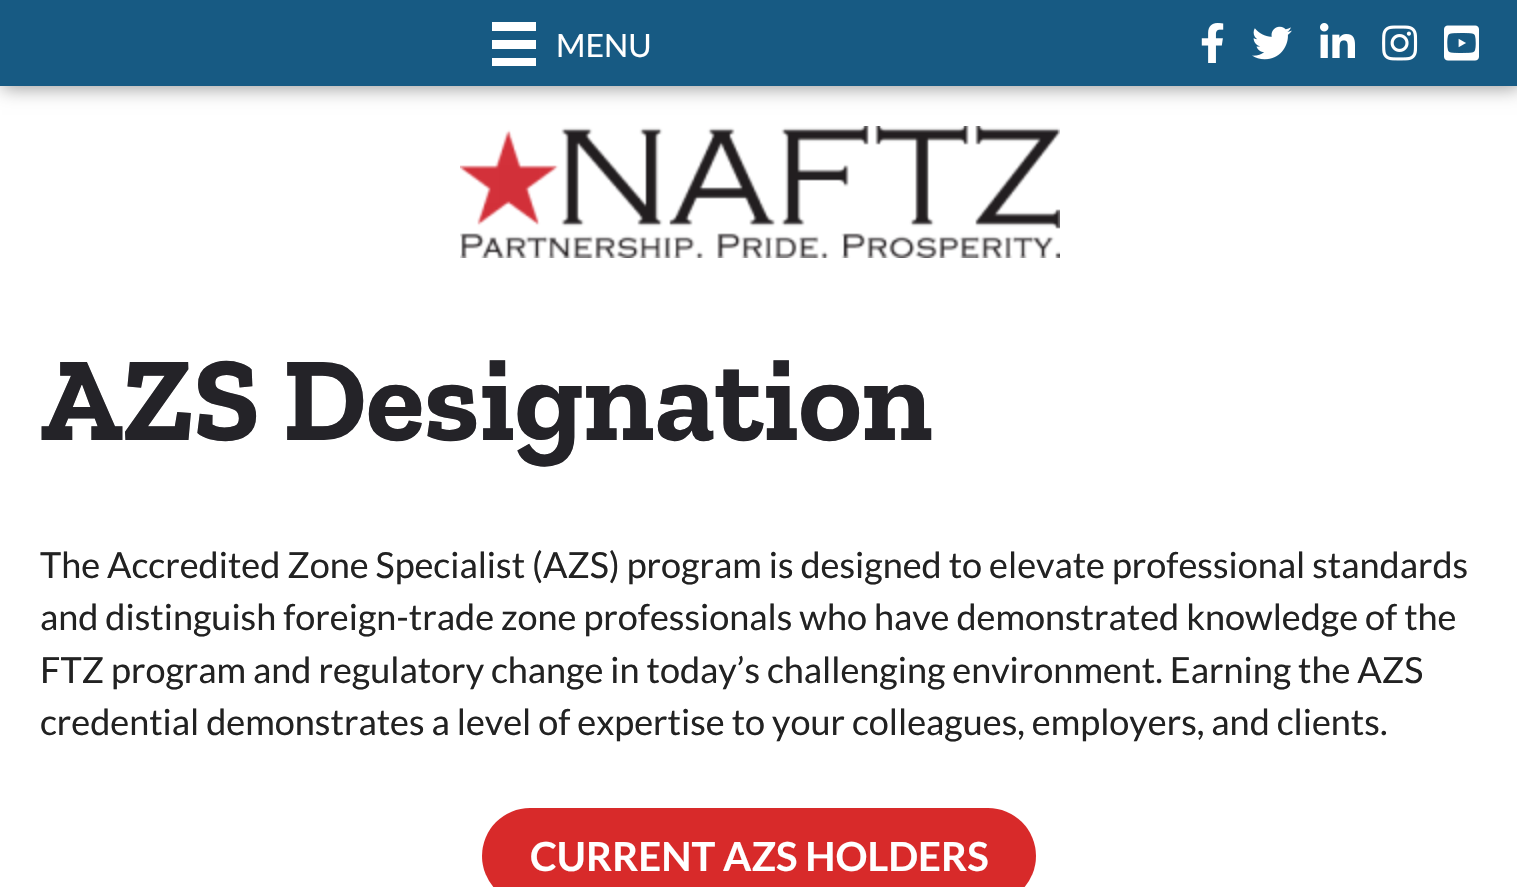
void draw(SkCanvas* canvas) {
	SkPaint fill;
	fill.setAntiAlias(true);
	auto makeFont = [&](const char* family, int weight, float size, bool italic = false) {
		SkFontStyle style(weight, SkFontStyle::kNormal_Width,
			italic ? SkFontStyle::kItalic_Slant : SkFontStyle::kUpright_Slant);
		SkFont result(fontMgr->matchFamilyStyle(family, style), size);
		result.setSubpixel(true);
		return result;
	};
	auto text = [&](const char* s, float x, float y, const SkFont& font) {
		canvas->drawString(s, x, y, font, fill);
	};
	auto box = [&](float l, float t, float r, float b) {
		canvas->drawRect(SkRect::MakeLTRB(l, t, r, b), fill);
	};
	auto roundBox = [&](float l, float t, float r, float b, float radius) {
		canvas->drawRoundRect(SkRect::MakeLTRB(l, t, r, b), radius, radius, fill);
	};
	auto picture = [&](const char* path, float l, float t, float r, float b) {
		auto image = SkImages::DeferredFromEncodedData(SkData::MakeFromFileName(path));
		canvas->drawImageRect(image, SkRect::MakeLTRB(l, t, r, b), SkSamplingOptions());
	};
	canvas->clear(0xFFFFFFFF);
	fill.setColor(0xFF999999);
	fill.setMaskFilter(SkMaskFilter::MakeBlur(kNormal_SkBlurStyle, 9));
	canvas->drawRect(SkRect::MakeLTRB(2, 2, 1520, 88), fill);
	fill.setMaskFilter(nullptr);
	fill.setColor(0xFF175A83);
	box(0, 0, 1517, 86);
	fill.setColor(0xFFFFFFFF);
	box(492, 22, 536, 31);
	box(492, 40, 536, 49);
	box(492, 58, 536, 66);
	picture("image0.png", 1201, 23, 1224, 63);
	picture("image1.png", 1252, 26, 1292, 60);
	picture("image2.png", 1320, 23, 1355, 58);
	picture("image3.png", 1382, 25, 1418, 61);
	picture("image4.png", 1444, 25, 1479, 61);
	picture("image5.png", 460, 126, 1060, 258);
	fill.setColor(0xFFD82A2A);
	roundBox(482, 808, 1036, 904, 48);
	auto font1 = makeFont("Lato", 400, 32);
	fill.setColor(0xFFFFFFFF);
	text("MENU", 556, 57, font1);
	auto font2 = makeFont("Zilla Slab", 700, 120);
	fill.setColor(0xFF242328);
	text("AZS Designation", 40, 440, font2);
	auto font3 = makeFont("Lato", 400, 36);
	fill.setColor(0xFF222222);
	text("The Accredited Zone Specialist (AZS) program is designed to elevate professional standards", 40, 578, font3);
	text("and distinguish foreign-trade zone professionals who have demonstrated knowledge of the", 40, 630, font3);
	text("FTZ program and regulatory change in today’s challenging environment. Earning the AZS", 40, 683, font3);
	text("credential demonstrates a level of expertise to your colleagues, employers, and clients.", 40, 735, font3);
	auto font4 = makeFont("Lato", 700, 40);
	fill.setColor(0xFFFFFFFF);
	text("CURRENT AZS HOLDERS", 530, 871, font4);
}
